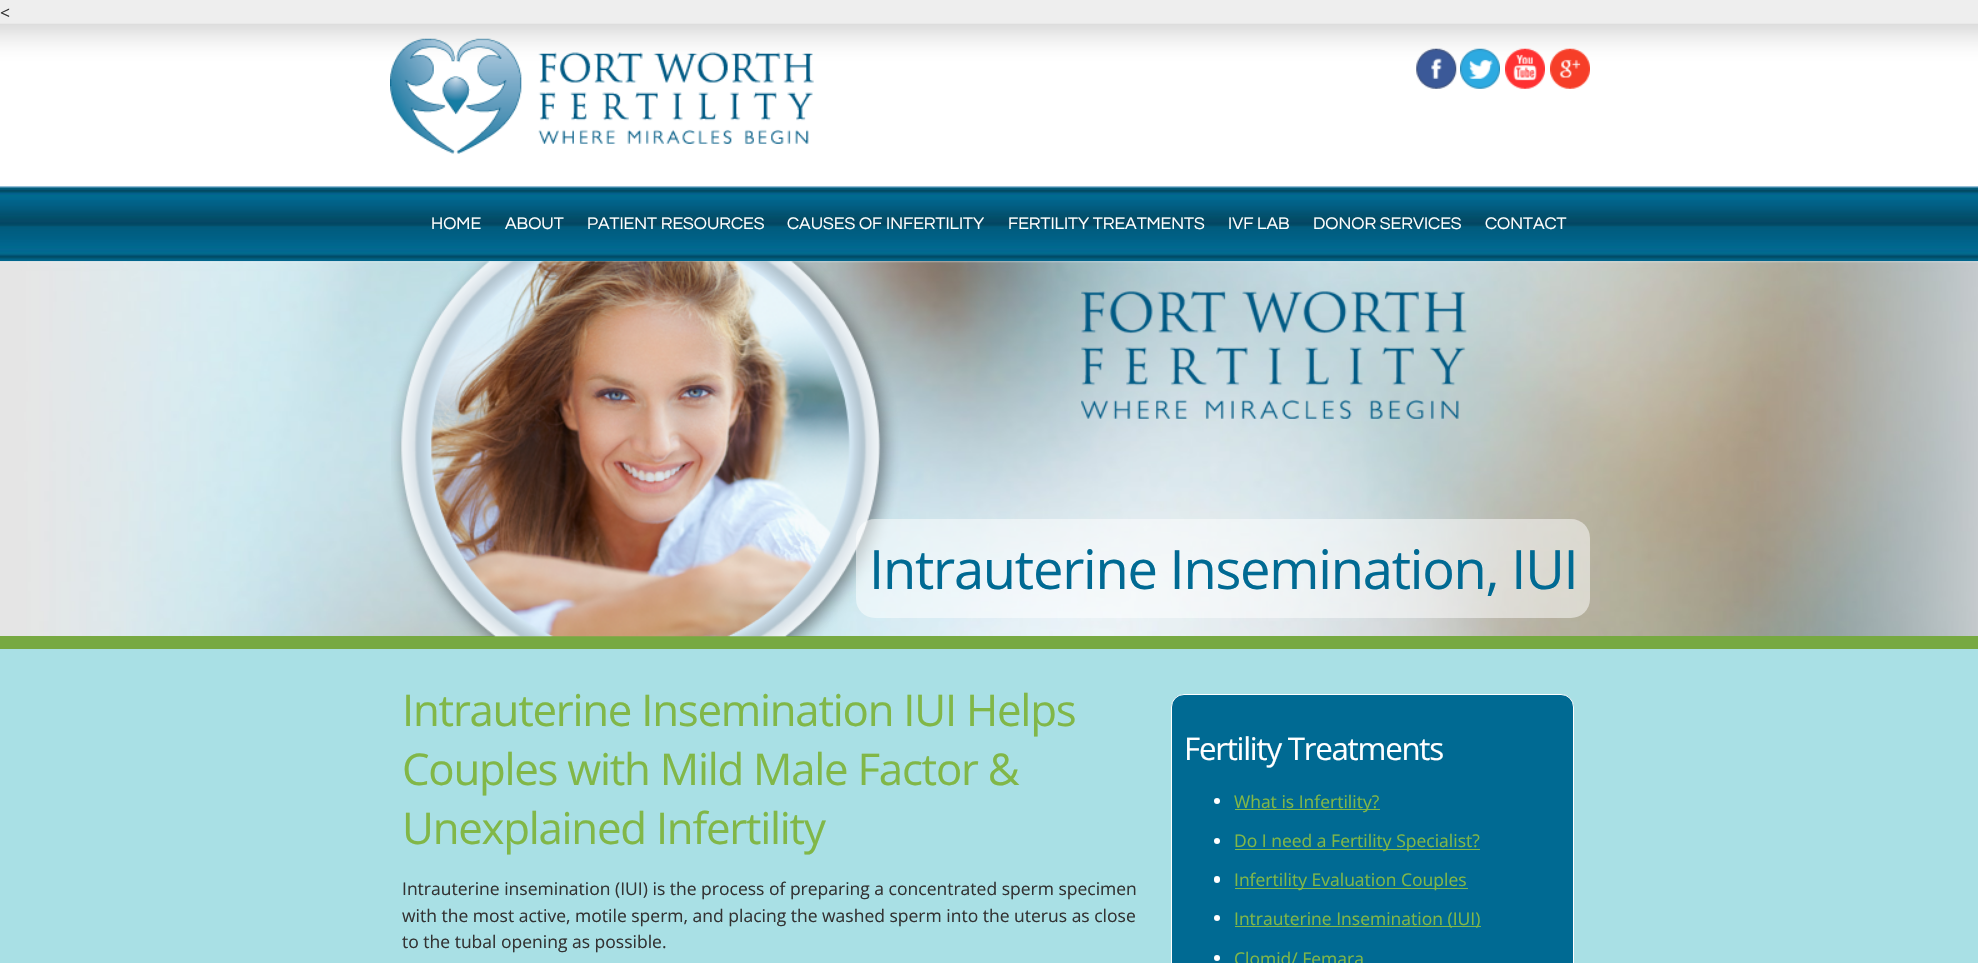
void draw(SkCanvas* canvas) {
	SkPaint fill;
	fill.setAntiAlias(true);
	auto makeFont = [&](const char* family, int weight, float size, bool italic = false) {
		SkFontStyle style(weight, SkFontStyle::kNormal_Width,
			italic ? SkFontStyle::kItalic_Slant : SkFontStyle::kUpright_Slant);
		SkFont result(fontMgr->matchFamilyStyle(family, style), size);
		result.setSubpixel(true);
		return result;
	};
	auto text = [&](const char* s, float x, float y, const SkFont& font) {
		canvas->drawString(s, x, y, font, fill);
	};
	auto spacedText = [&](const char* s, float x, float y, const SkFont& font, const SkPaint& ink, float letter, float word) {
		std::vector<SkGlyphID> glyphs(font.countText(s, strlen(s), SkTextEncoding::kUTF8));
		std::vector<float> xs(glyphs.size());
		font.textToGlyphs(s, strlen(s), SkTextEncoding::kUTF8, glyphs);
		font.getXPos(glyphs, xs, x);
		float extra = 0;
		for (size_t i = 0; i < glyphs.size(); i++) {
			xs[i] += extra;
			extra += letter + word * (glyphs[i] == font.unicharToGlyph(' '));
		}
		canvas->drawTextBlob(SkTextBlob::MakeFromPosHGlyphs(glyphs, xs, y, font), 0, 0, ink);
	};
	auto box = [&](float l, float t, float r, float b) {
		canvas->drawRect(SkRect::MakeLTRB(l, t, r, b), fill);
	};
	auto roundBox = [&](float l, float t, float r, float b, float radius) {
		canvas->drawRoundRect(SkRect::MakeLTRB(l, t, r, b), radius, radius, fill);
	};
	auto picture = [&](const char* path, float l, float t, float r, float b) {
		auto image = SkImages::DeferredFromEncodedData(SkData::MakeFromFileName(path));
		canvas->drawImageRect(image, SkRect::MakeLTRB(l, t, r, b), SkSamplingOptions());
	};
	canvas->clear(0xFFEEEEEE);
	picture("image0.png", 0, 23, 1978, 187);
	picture("image1.png", 390, 38, 814, 154);
	picture("image2.png", 1416, 48, 1457, 89);
	picture("image3.png", 1460, 48, 1500, 89);
	picture("image4.png", 1505, 48, 1545, 89);
	picture("image5.png", 1550, 48, 1590, 89);
	picture("image6.png", 0, 186, 1978, 262);
	picture("image7.png", 0, 261, 1978, 636);
	fill.setColor(0xFF77A942);
	box(0, 636, 1978, 649);
	picture("image8.png", 391, 261, 1467, 637);
	fill.setColor(0x80FFFFFF);
	roundBox(856, 519, 1590, 618, 19);
	fill.setColor(0xFFA9E0E5);
	box(0, 649, 1978, 963);
	fill.setColor(0xFF006A93);
	canvas->drawRoundRect(SkRect::MakeLTRB(1171.5f, 694.5f, 1573.5f, 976.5f), 12.5f, 12.5f, fill);
	fill.setStyle(SkPaint::kStroke_Style);
	fill.setStrokeWidth(1);
	fill.setColor(0xFFFFFFFF);
	canvas->drawRoundRect(SkRect::MakeLTRB(1171.5f, 694.5f, 1573.5f, 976.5f), 12.5f, 12.5f, fill);
	fill.setStyle(SkPaint::kFill_Style);
	canvas->drawCircle(1217, 801, 3, fill);
	fill.setColor(0xFF81B748);
	box(1235, 809, 1380, 810);
	fill.setColor(0xFFFFFFFF);
	canvas->drawCircle(1217, 841, 3, fill);
	fill.setColor(0xFF81B748);
	box(1235, 849, 1480, 850);
	fill.setColor(0xFFFFFFFF);
	roundBox(1214, 876, 1220, 883, 3);
	fill.setColor(0xFF81B748);
	box(1235, 888, 1468, 889);
	fill.setColor(0xFFFFFFFF);
	canvas->drawCircle(1217, 918, 3, fill);
	fill.setColor(0xFF81B748);
	box(1235, 926, 1481, 927);
	fill.setColor(0xFFFFFFFF);
	canvas->drawCircle(1217, 958, 3, fill);
	auto font1 = makeFont("Open Sans", 400, 17.5f);
	fill.setColor(0xFF333333);
	text("<", 0, 19, font1);
	auto font2 = makeFont("Questrial", 400, 17.5f);
	fill.setColor(0xFFFFFFFF);
	text("HOME", 431, 229, font2);
	text("ABOUT", 505, 229, font2);
	text("PATIENT RESOURCES", 587, 229, font2);
	text("CAUSES OF INFERTILITY", 787, 229, font2);
	text("FERTILITY TREATMENTS", 1008, 229, font2);
	text("IVF LAB", 1228, 229, font2);
	text("DONOR SERVICES", 1313, 229, font2);
	text("CONTACT", 1485, 229, font2);
	auto font3 = makeFont("Open Sans", 400, 54.25f);
	fill.setColor(0xFF006A93);
	spacedText("Intrauterine Insemination, IUI", 869, 589, font3, fill, -1.25f, 0);
	auto font4 = makeFont("Open Sans", 400, 43.75f);
	fill.setColor(0xFF81B748);
	spacedText("Intrauterine Insemination IUI Helps", 402, 726, font4, fill, -1.25f, 0);
	spacedText("Couples with Mild Male Factor &", 402, 785, font4, fill, -1.25f, 0);
	spacedText("Unexplained Infertility", 402, 844, font4, fill, -1.25f, 0);
	fill.setColor(0xFF333333);
	text("Intrauterine insemination (IUI) is the process of preparing a concentrated sperm specimen", 402, 895, font1);
	text("with the most active, motile sperm, and placing the washed sperm into the uterus as close", 402, 922, font1);
	text("to the tubal opening as possible.", 402, 948, font1);
	auto font5 = makeFont("Open Sans", 400, 31.25f);
	fill.setColor(0xFFFFFFFF);
	spacedText("Fertility Treatments", 1184, 760, font5, fill, -1.25f, 0);
	fill.setColor(0xFF81B748);
	text("What is Infertility?", 1234, 808, font1);
	text("Do I need a Fertility Specialist?", 1234, 847, font1);
	text("Infertility Evaluation Couples", 1234, 886, font1);
	text("Intrauterine Insemination (IUI)", 1234, 925, font1);
	text("Clomid/ Femara", 1234, 965, font1);
}
